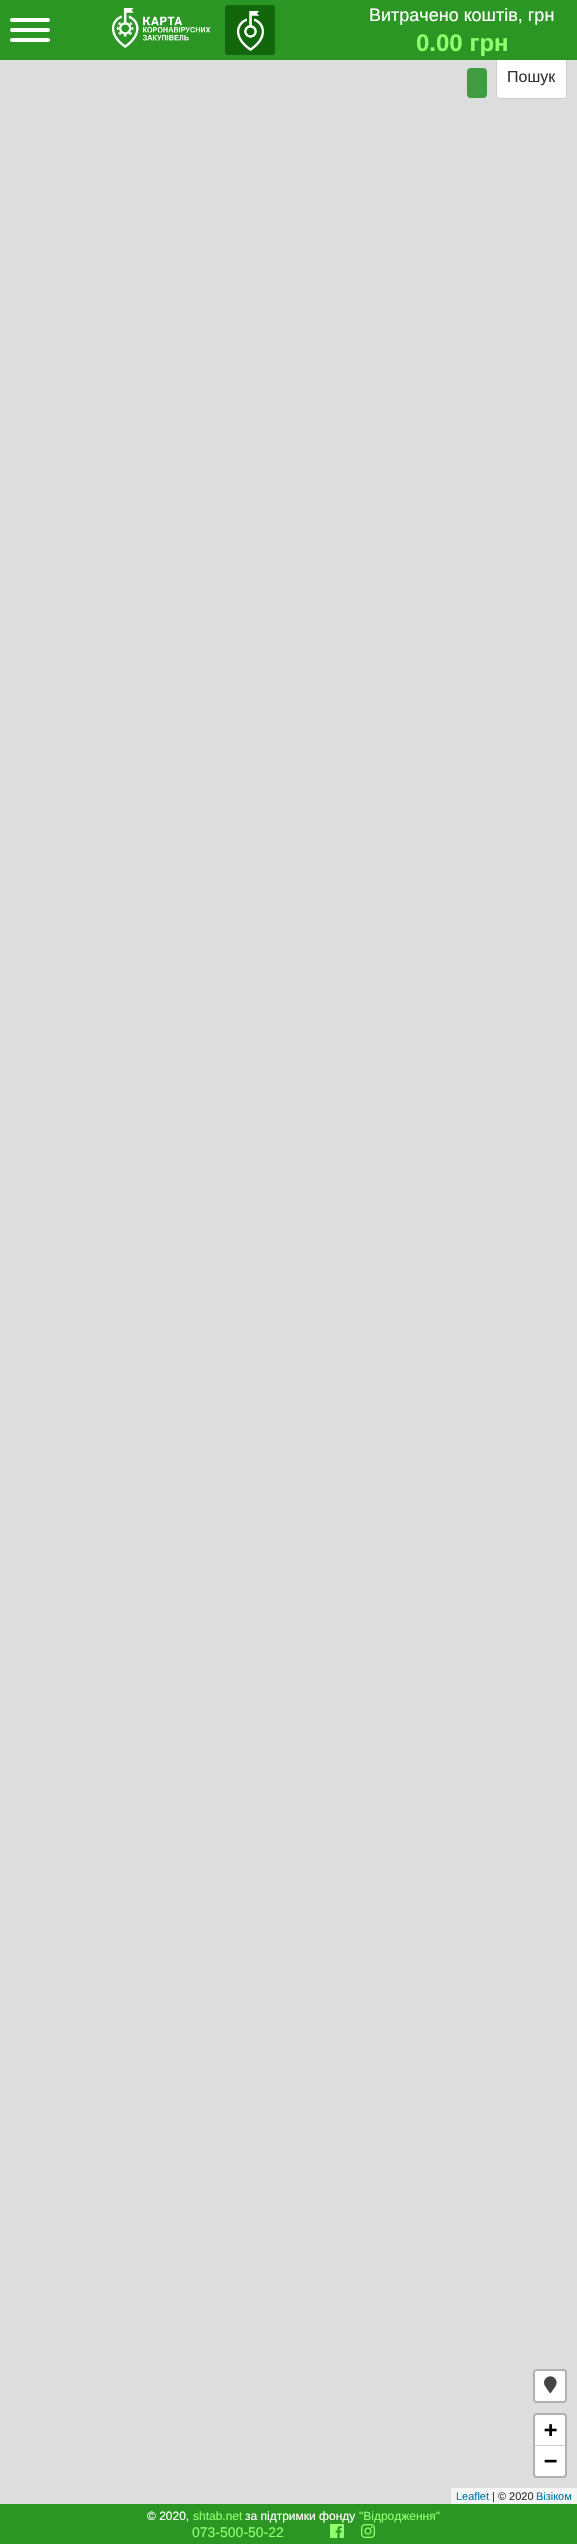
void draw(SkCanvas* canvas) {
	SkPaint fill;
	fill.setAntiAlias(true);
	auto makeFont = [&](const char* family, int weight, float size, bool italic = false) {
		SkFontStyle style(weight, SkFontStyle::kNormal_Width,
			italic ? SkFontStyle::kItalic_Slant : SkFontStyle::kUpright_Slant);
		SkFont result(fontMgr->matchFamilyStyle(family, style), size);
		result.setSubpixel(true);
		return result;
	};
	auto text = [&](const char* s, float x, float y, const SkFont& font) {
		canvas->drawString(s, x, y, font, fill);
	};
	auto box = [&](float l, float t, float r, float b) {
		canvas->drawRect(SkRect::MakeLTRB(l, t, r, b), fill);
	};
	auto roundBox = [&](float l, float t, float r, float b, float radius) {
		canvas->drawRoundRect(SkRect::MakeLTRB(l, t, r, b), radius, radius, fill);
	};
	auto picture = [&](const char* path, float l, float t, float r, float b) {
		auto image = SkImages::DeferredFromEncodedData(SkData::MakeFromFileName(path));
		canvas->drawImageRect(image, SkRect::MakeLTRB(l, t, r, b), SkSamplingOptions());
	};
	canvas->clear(0xFF2B9624);
	fill.setColor(0xFFDDDDDD);
	box(0, 60, 577, 2504);
	fill.setColor(0xFFFFFFFF);
	canvas->drawPath(SkPathBuilder().moveTo(496, 57).lineTo(567, 57).lineTo(567, 95).cubicTo(567, 97, 565, 99, 563, 99).lineTo(500, 99).cubicTo(498, 99, 496, 97, 496, 95).close().detach(), fill);
	fill.setColor(0xFFCCCCCC);
	canvas->drawPath(SkPathBuilder(SkPathFillType::kEvenOdd).moveTo(496, 57).lineTo(567, 57).lineTo(567, 95).cubicTo(567, 97, 565, 99, 563, 99).lineTo(500, 99).cubicTo(498, 99, 496, 97, 496, 95).close().moveTo(497, 57).lineTo(566, 57).lineTo(566, 95).cubicTo(566, 97, 565, 98, 563, 98).lineTo(500, 98).cubicTo(498, 98, 497, 97, 497, 95).close().detach(), fill);
	fill.setColor(0xFF2B9624);
	box(496, 57, 567, 60);
	fill.setColor(0xFFFFFFFF);
	roundBox(10, 28, 50, 32, 2);
	roundBox(10, 18, 50, 22, 2);
	roundBox(10, 38, 50, 42, 2);
	picture("image0.png", 112, 8, 211, 48);
	fill.setColor(0xFF12670D);
	roundBox(225, 5, 275, 55, 3);
	picture("image1.png", 237, 11, 264, 51);
	fill.setColor(0xFF3D9D40);
	roundBox(467, 68, 487, 98, 4);
	fill.setStyle(SkPaint::kStroke_Style);
	fill.setStrokeWidth(2);
	fill.setColor(0xFFB1B1B1);
	canvas->drawRoundRect(SkRect::MakeLTRB(534, 2370, 566, 2402), 3, 3, fill);
	fill.setStyle(SkPaint::kFill_Style);
	fill.setColor(0xFFFFFFFF);
	roundBox(535, 2371, 565, 2401, 2);
	picture("image2.png", 544, 2376, 557, 2394);
	fill.setStyle(SkPaint::kStroke_Style);
	fill.setColor(0xFFB1B1B1);
	canvas->drawRoundRect(SkRect::MakeLTRB(534, 2414, 566, 2477), 3, 3, fill);
	fill.setStyle(SkPaint::kFill_Style);
	fill.setColor(0xFFFFFFFF);
	canvas->drawPath(SkPathBuilder().moveTo(537, 2415).lineTo(563, 2415).cubicTo(564, 2415, 565, 2416, 565, 2417).lineTo(565, 2446).lineTo(535, 2446).lineTo(535, 2417).cubicTo(535, 2416, 536, 2415, 537, 2415).close().detach(), fill);
	fill.setColor(0xFFCCCCCC);
	box(535, 2445, 565, 2446);
	fill.setColor(0xFFFFFFFF);
	canvas->drawPath(SkPathBuilder().moveTo(535, 2446).lineTo(565, 2446).lineTo(565, 2474).cubicTo(565, 2475, 564, 2476, 563, 2476).lineTo(537, 2476).cubicTo(536, 2476, 535, 2475, 535, 2474).close().detach(), fill);
	fill.setColor(0xFFF5F5F5);
	box(451, 2488, 577, 2504);
	picture("image3.png", 330, 2524, 344, 2538);
	picture("image4.png", 361, 2524, 375, 2538);
	auto font1 = makeFont("Liberation Sans", 400, 18);
	fill.setColor(0xFFFFFFFF);
	text("Витрачено коштів, грн", 369, 21, font1);
	auto font2 = makeFont("Liberation Sans", 700, 24);
	fill.setColor(0xFF91FF6E);
	text("0.00 грн", 416, 51, font2);
	auto font3 = makeFont("Liberation Sans", 400, 16);
	fill.setColor(0xFF333333);
	text("Пошук", 507, 82, font3);
	auto font4 = makeFont("DejaVu Sans Mono", 700, 22);
	fill.setColor(0xFF000000);
	text("+", 544, 2437, font4);
	text("−", 544, 2468, font4);
	auto font5 = makeFont("Liberation Sans", 400, 11);
	fill.setColor(0xFF0078A8);
	text("Leaflet", 456, 2500, font5);
	fill.setColor(0xFF333333);
	text("| © 2020", 492, 2500, font5);
	fill.setColor(0xFF0078A8);
	text("Візіком", 536, 2500, font5);
	auto font6 = makeFont("Liberation Sans", 400, 12);
	fill.setColor(0xFFFFFFFF);
	text("© 2020,", 147, 2520, font6);
	fill.setColor(0xFF91FF6E);
	text("shtab.net", 193, 2520, font6);
	fill.setColor(0xFFFFFFFF);
	text("за підтримки фонду", 245, 2520, font6);
	fill.setColor(0xFF91FF6E);
	text("\"Відродження\"", 359, 2520, font6);
	auto font7 = makeFont("Liberation Sans", 400, 14);
	text("073-500-50-22", 192, 2537, font7);
}
